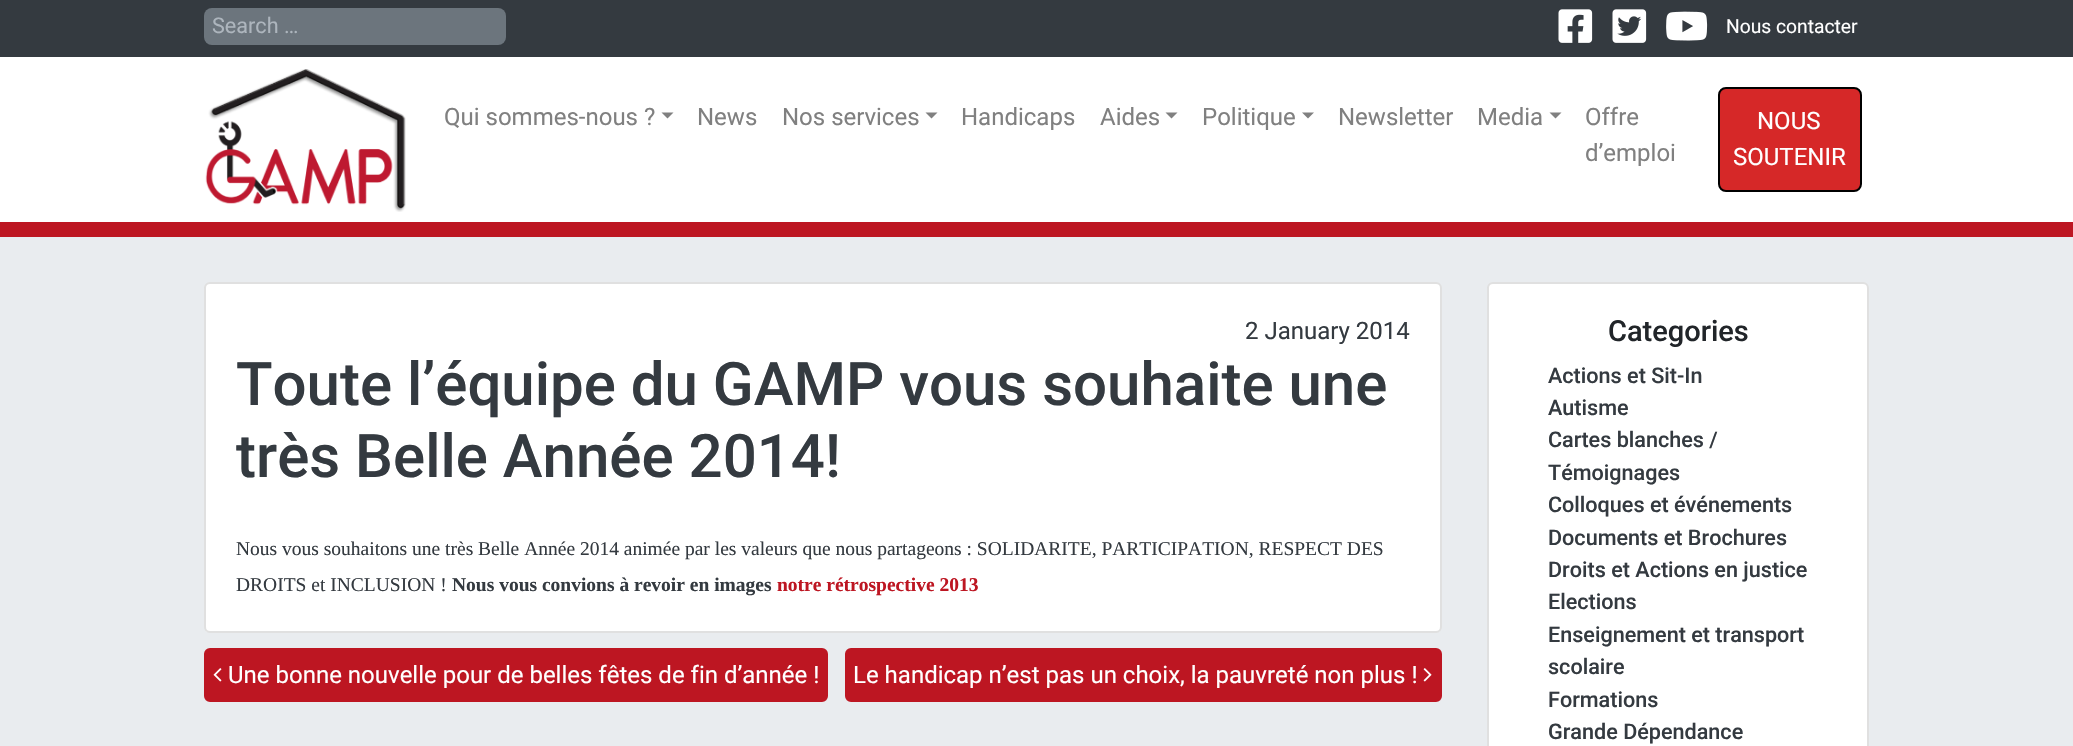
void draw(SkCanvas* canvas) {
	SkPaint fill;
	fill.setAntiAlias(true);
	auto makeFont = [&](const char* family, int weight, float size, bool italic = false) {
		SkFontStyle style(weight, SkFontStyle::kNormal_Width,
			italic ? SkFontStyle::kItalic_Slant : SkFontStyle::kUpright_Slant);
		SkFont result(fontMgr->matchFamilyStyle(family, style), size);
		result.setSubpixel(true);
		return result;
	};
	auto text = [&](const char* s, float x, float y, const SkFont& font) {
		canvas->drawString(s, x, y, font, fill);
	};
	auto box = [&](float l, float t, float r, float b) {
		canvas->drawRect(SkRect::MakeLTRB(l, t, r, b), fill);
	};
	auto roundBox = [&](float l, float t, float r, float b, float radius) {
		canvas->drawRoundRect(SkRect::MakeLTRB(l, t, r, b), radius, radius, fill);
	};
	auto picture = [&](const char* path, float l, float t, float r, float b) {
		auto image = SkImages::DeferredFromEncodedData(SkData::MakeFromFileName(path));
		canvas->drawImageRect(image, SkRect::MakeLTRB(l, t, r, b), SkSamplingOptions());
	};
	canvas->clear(0xFFE9ECEF);
	fill.setColor(0xFF343A40);
	box(0, 0, 2073, 57);
	fill.setColor(0xFF6C757D);
	roundBox(204, 8, 506, 45, 8);
	picture("image0.png", 1558, 9, 1593, 43);
	picture("image1.png", 1612, 9, 1647, 43);
	picture("image2.png", 1666, 11, 1708, 41);
	fill.setColor(0xFFFFFFFF);
	box(0, 57, 2073, 222);
	fill.setColor(0xFFBD1622);
	box(0, 222, 2073, 237);
	picture("image3.png", 205, 69, 406, 212);
	fill.setColor(0xFF808080);
	canvas->drawPath(SkPathBuilder().moveTo(661.5f, 112.5f).lineTo(673.5f, 112.5f).lineTo(667.5f, 118.5f).close().detach(), fill);
	canvas->drawPath(SkPathBuilder().moveTo(925.5f, 112.5f).lineTo(937.5f, 112.5f).lineTo(931.5f, 118.5f).close().detach(), fill);
	canvas->drawPath(SkPathBuilder().moveTo(1165.5f, 112.5f).lineTo(1177.5f, 112.5f).lineTo(1171.5f, 118.5f).close().detach(), fill);
	canvas->drawPath(SkPathBuilder().moveTo(1302, 112.5f).lineTo(1314, 112.5f).lineTo(1308, 118.5f).close().detach(), fill);
	canvas->drawPath(SkPathBuilder().moveTo(1549.5f, 112.5f).lineTo(1561.5f, 112.5f).lineTo(1555.5f, 118.5f).close().detach(), fill);
	fill.setColor(0xFFD62828);
	canvas->drawRoundRect(SkRect::MakeLTRB(1719, 88, 1861, 191), 7, 7, fill);
	fill.setStyle(SkPaint::kStroke_Style);
	fill.setStrokeWidth(2);
	fill.setColor(0xFF000000);
	canvas->drawRoundRect(SkRect::MakeLTRB(1719, 88, 1861, 191), 7, 7, fill);
	fill.setStyle(SkPaint::kFill_Style);
	fill.setColor(0xFFFFFFFF);
	roundBox(204, 282, 1442, 633, 6);
	fill.setStyle(SkPaint::kStroke_Style);
	fill.setColor(0x1F000000);
	canvas->drawRoundRect(SkRect::MakeLTRB(205, 283, 1441, 632), 5, 5, fill);
	fill.setStyle(SkPaint::kFill_Style);
	fill.setColor(0xFFBD1622);
	canvas->drawRoundRect(SkRect::MakeLTRB(205, 649, 827, 701), 5, 5, fill);
	fill.setStyle(SkPaint::kStroke_Style);
	canvas->drawRoundRect(SkRect::MakeLTRB(205, 649, 827, 701), 5, 5, fill);
	picture("image4.png", 213, 668, 222, 682);
	fill.setStyle(SkPaint::kFill_Style);
	canvas->drawRoundRect(SkRect::MakeLTRB(846, 649, 1441, 701), 5, 5, fill);
	fill.setStyle(SkPaint::kStroke_Style);
	canvas->drawRoundRect(SkRect::MakeLTRB(846, 649, 1441, 701), 5, 5, fill);
	picture("image5.png", 1423, 668, 1432, 682);
	fill.setStyle(SkPaint::kFill_Style);
	fill.setColor(0xFFFFFFFF);
	roundBox(1487, 282, 1869, 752, 6);
	fill.setStyle(SkPaint::kStroke_Style);
	fill.setColor(0x1F000000);
	canvas->drawRoundRect(SkRect::MakeLTRB(1488, 283, 1868, 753), 5, 5, fill);
	auto font1 = makeFont("Roboto", 400, 21.6f);
	fill.setStyle(SkPaint::kFill_Style);
	fill.setColor(0xFFADB5BD);
	text("Search …", 212, 33, font1);
	auto font2 = makeFont("Roboto", 400, 19.25f);
	fill.setColor(0xFFFFFFFF);
	text("Nous contacter", 1726, 33, font2);
	auto font3 = makeFont("Roboto", 400, 24);
	fill.setColor(0xFF808080);
	text("Qui sommes-nous ?", 444, 125, font3);
	text("News", 697, 125, font3);
	text("Nos services", 782, 125, font3);
	text("Handicaps", 961, 125, font3);
	text("Aides", 1100, 125, font3);
	text("Politique", 1202, 125, font3);
	text("Newsletter", 1338, 125, font3);
	text("Media", 1477, 125, font3);
	text("Offre", 1585, 125, font3);
	text("d’emploi", 1585, 161, font3);
	fill.setColor(0xFFFFFFFF);
	text("NOUS", 1757, 129, font3);
	text("SOUTENIR", 1733, 165, font3);
	fill.setColor(0xFF343A40);
	text("2 January 2014", 1245, 339, font3);
	auto font4 = makeFont("Roboto", 500, 60);
	text("Toute l’équipe du GAMP vous souhaite une", 236, 405, font4);
	text("très Belle Année 2014!", 236, 477, font4);
	auto font5 = makeFont("Liberation Serif", 400, 19.5f);
	text("Nous vous souhaitons une très Belle Année 2014 animée par les valeurs que nous partageons : SOLIDARITE, PARTICIPATION, RESPECT DES", 236, 555, font5);
	text("DROITS et INCLUSION !", 236, 591, font5);
	auto font6 = makeFont("Liberation Serif", 700, 19.5f);
	text("Nous vous convions à revoir en images", 452, 591, font6);
	fill.setColor(0xFFBD1622);
	text("notre rétrospective 2013", 777, 591, font6);
	fill.setColor(0xFFFFFFFF);
	text("Une bonne nouvelle pour de belles fêtes de fin d’année !", 228, 683, font3);
	text("Le handicap n’est pas un choix, la pauvreté non plus !", 853, 683, font3);
	auto font7 = makeFont("Roboto", 500, 29);
	fill.setColor(0xFF212529);
	text("Categories", 1608, 341, font7);
	auto font8 = makeFont("Roboto", 500, 21.6f);
	fill.setColor(0xFF343A40);
	text("Actions et Sit-In", 1548, 383, font8);
	text("Autisme", 1548, 415, font8);
	text("Cartes blanches /", 1548, 447, font8);
	text("Témoignages", 1548, 480, font8);
	text("Colloques et événements", 1548, 512, font8);
	text("Documents et Brochures", 1548, 545, font8);
	text("Droits et Actions en justice", 1548, 577, font8);
	text("Elections", 1548, 609, font8);
	text("Enseignement et transport", 1548, 642, font8);
	text("scolaire", 1548, 674, font8);
	text("Formations", 1548, 707, font8);
	text("Grande Dépendance", 1548, 739, font8);
}
